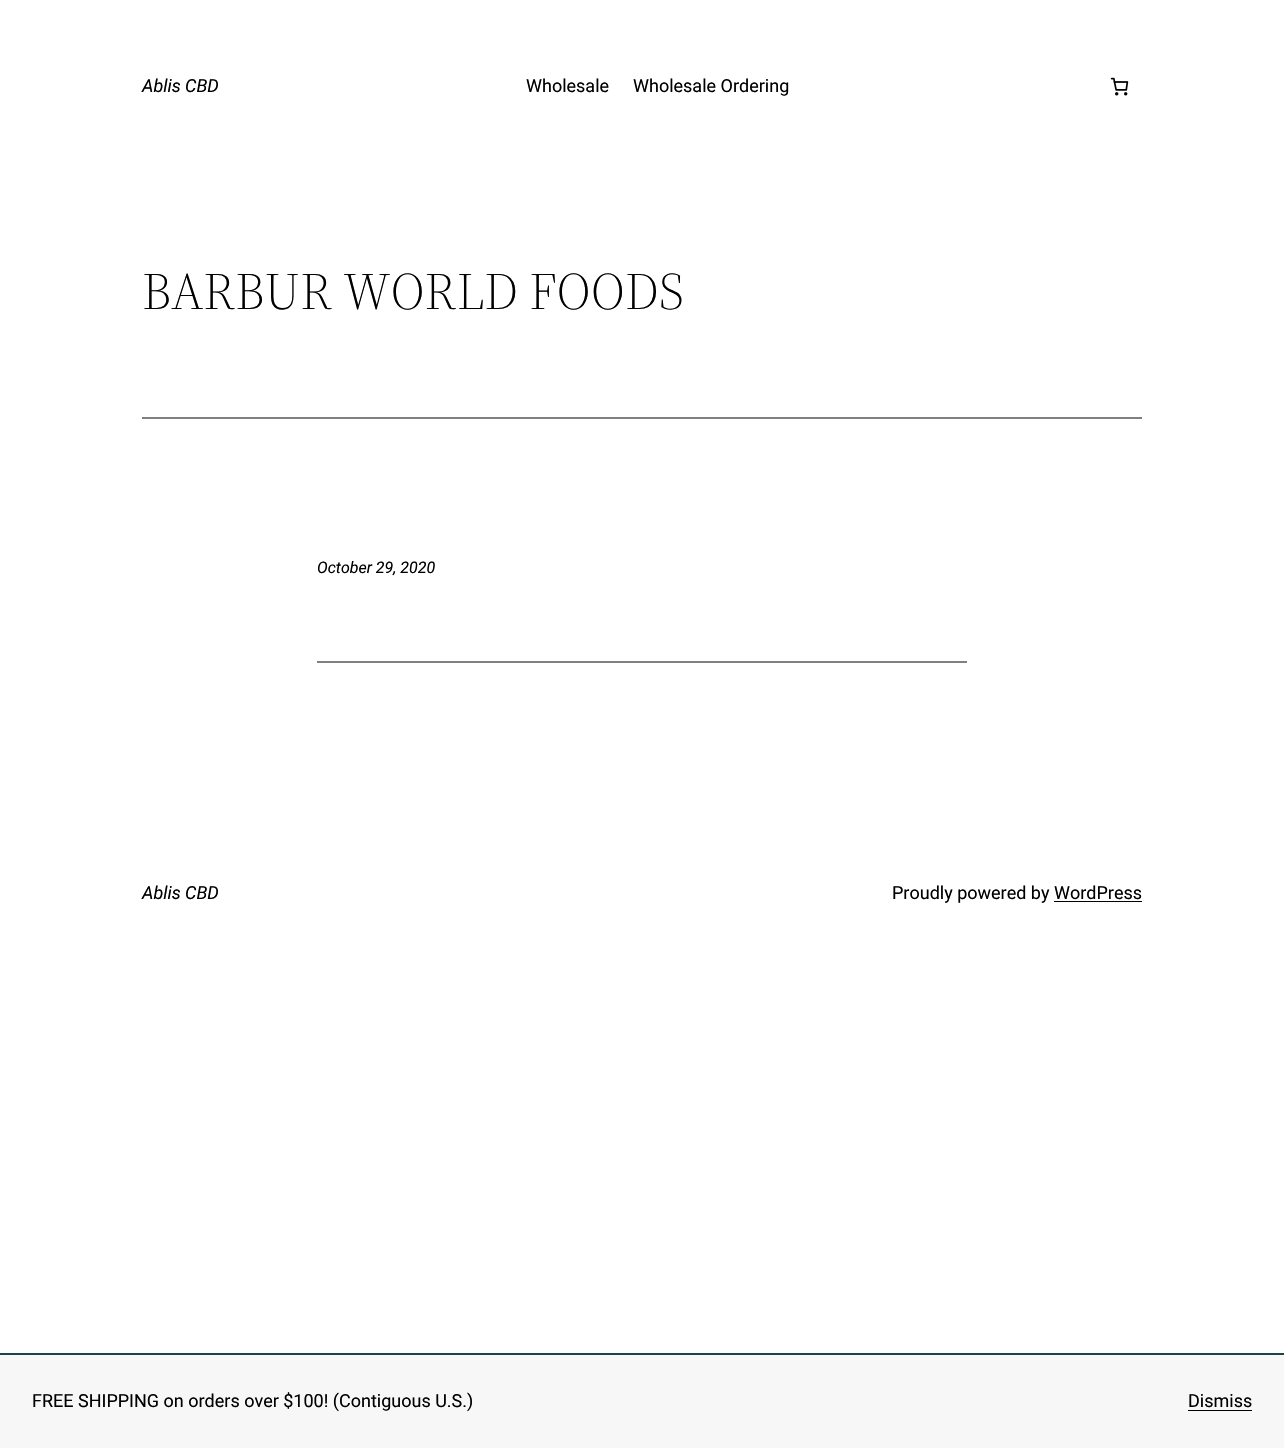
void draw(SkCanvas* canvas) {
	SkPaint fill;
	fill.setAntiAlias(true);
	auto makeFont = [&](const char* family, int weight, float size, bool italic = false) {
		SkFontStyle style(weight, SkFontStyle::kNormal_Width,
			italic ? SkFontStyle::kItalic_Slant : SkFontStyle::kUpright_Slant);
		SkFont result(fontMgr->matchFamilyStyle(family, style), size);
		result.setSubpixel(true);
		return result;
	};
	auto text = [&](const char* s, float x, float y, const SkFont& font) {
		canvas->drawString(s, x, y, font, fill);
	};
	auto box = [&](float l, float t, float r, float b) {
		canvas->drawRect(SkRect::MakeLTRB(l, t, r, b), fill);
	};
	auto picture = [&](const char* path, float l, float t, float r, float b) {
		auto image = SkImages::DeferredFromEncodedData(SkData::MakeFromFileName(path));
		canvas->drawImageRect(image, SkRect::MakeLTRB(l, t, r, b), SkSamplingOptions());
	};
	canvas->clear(0xFFFFFFFF);
	picture("image0.png", 1110, 77, 1129, 96);
	fill.setColor(0xFF808080);
	box(142, 417, 1142, 419);
	box(317, 661, 967, 663);
	fill.setColor(0xFF000000);
	box(1054, 901, 1142, 902);
	fill.setColor(0xFFF7F7F7);
	box(0, 1355, 1284, 1448);
	fill.setColor(0xFF1A4548);
	box(0, 1353, 1284, 1355);
	fill.setColor(0xFF000000);
	box(1188, 1410, 1252, 1411);
	auto font1 = makeFont("Roboto", 400, 18, true);
	text("Ablis CBD", 142, 92, font1);
	auto font2 = makeFont("Roboto", 400, 18);
	text("Wholesale", 526, 92, font2);
	text("Wholesale Ordering", 633, 92, font2);
	auto font3 = makeFont("Source Serif 4", 300, 52);
	text("BARBUR WORLD FOODS", 142, 309, font3);
	auto font4 = makeFont("Roboto", 400, 16, true);
	text("October 29, 2020", 317, 573, font4);
	text("Ablis CBD", 142, 899, font1);
	text("Proudly powered by WordPress", 892, 899, font2);
	text("FREE SHIPPING on orders over $100! (Contiguous U.S.)", 32, 1407, font2);
	text("Dismiss", 1188, 1407, font2);
}
